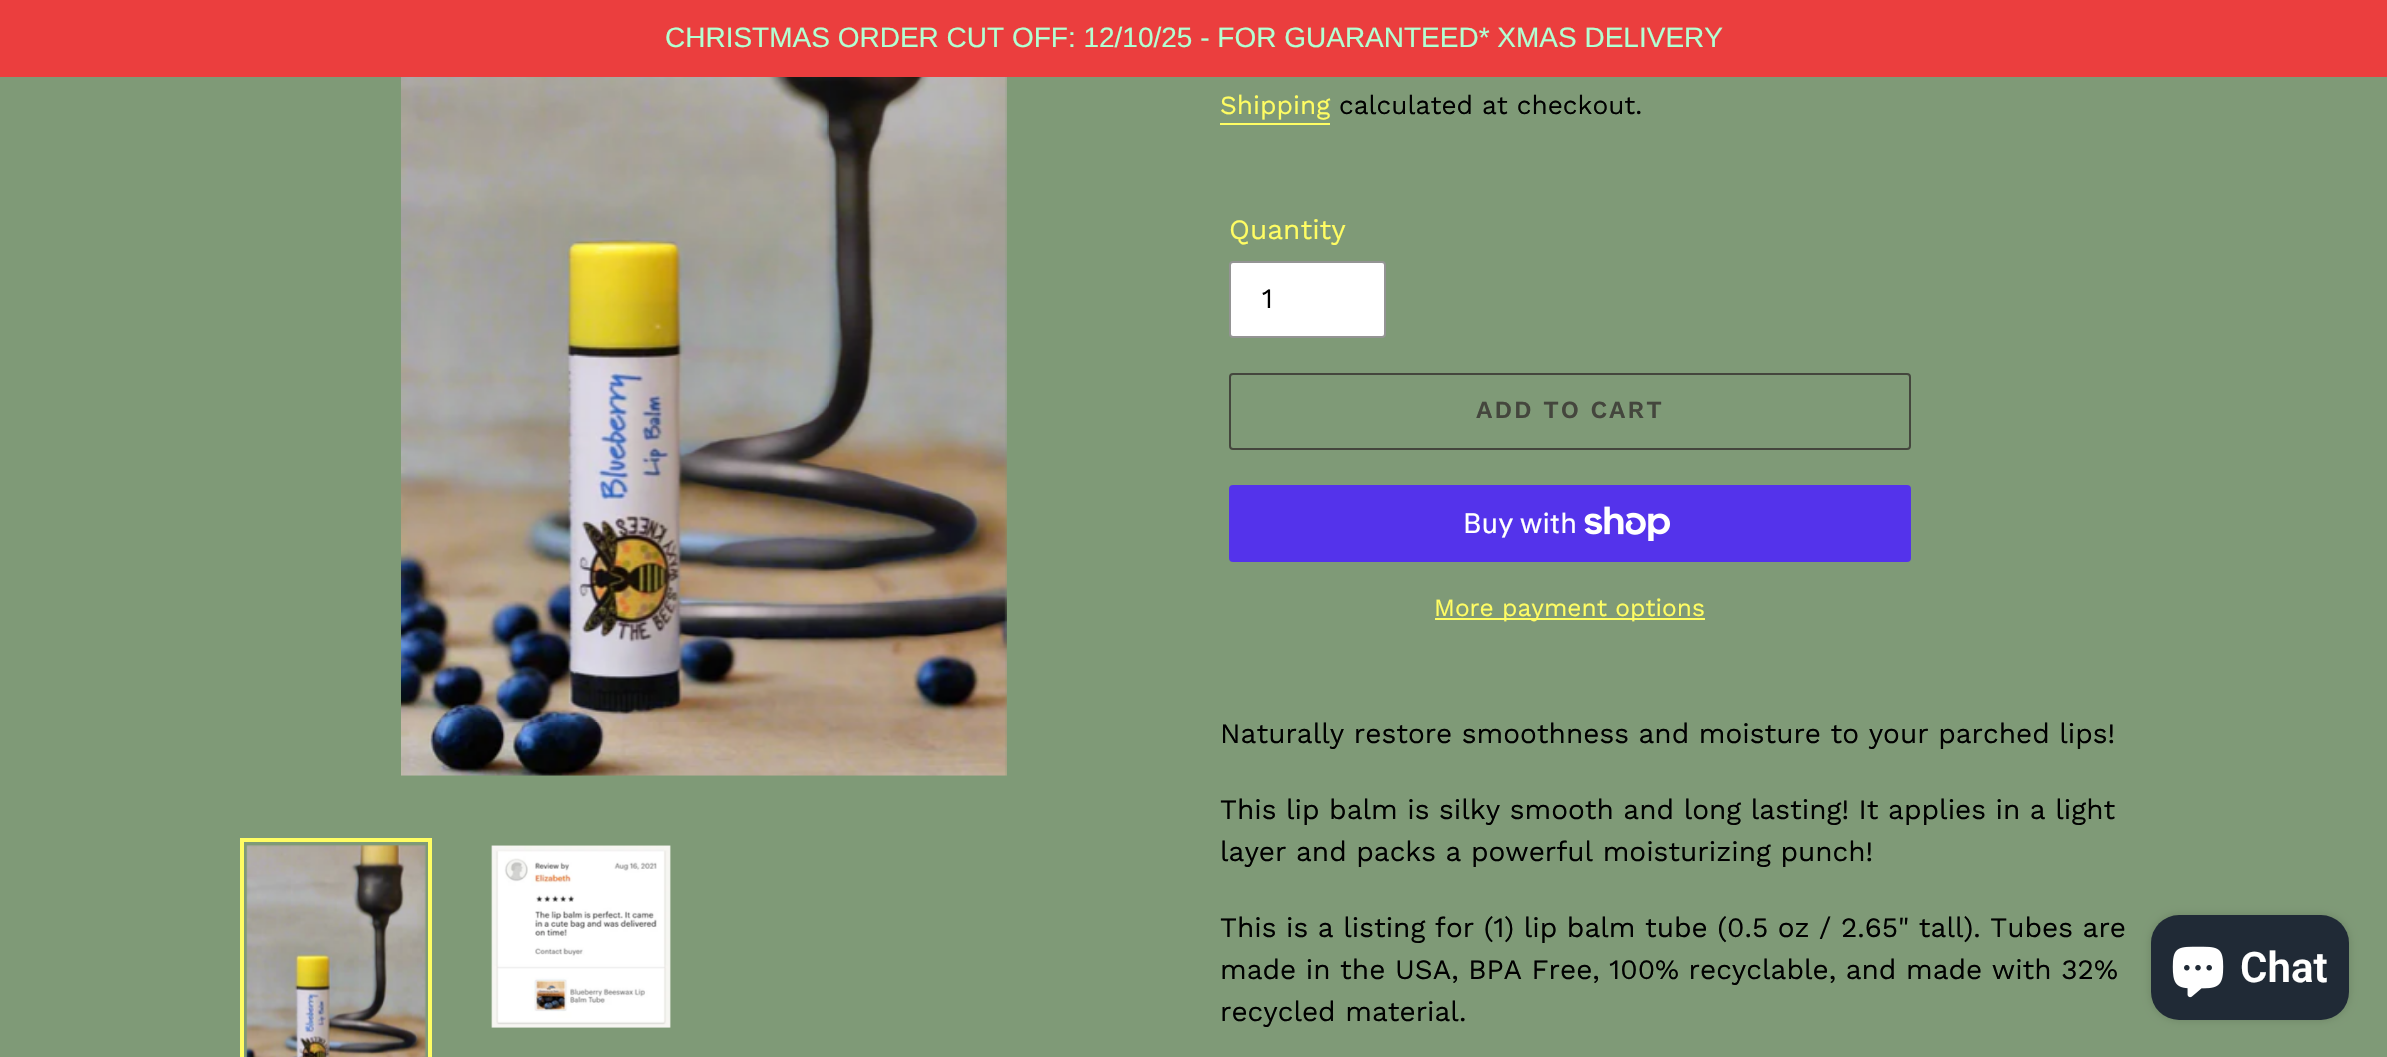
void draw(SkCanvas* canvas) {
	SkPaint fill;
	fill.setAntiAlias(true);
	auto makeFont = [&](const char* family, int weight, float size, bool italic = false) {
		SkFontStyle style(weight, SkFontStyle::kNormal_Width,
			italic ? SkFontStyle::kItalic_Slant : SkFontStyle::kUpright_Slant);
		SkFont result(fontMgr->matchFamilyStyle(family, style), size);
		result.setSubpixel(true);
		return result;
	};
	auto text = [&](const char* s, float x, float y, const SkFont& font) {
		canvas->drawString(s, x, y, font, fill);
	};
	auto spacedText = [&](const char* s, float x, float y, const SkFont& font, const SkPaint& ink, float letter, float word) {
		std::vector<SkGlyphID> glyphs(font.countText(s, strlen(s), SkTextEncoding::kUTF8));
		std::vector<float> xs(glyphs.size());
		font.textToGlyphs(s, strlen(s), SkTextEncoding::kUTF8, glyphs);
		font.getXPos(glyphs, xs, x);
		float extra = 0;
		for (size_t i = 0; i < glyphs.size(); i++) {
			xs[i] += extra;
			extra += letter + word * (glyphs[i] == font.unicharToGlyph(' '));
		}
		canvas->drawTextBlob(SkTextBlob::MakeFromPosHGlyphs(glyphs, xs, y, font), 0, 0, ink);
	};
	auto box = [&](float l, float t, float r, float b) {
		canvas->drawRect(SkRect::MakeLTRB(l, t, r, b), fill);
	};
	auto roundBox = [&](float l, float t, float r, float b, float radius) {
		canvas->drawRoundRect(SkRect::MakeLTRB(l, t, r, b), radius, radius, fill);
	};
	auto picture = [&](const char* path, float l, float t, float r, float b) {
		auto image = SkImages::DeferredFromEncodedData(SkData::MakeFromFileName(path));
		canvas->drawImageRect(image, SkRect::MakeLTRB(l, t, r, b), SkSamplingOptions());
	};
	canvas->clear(0xFF7F9A77);
	fill.setColor(0xFFEB3E3E);
	box(0, 0, 2387, 77);
	picture("image0.png", 401, 77, 1007, 776);
	fill.setStyle(SkPaint::kStroke_Style);
	fill.setStrokeWidth(4);
	fill.setColor(0xFFFFFD63);
	canvas->drawRect(SkRect::MakeLTRB(242, 840, 430, 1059), fill);
	picture("image1.png", 245, 845, 426, 1057);
	picture("image2.png", 491, 845, 671, 1028);
	fill.setStyle(SkPaint::kFill_Style);
	box(1220, 123, 1330, 125);
	fill.setColor(0xFFFFFFFF);
	canvas->drawRoundRect(SkRect::MakeLTRB(1230, 262, 1385, 337), 3, 3, fill);
	fill.setStyle(SkPaint::kStroke_Style);
	fill.setStrokeWidth(2);
	fill.setColor(0xFF949494);
	canvas->drawRoundRect(SkRect::MakeLTRB(1230, 262, 1385, 337), 3, 3, fill);
	fill.setColor(0xFF44463D);
	canvas->drawRoundRect(SkRect::MakeLTRB(1230, 374, 1910, 449), 3, 3, fill);
	fill.setStyle(SkPaint::kFill_Style);
	fill.setColor(0xFF5433EB);
	roundBox(1229, 485, 1911, 562, 4);
	picture("image3.png", 1584, 506, 1670, 541);
	fill.setColor(0xFFFFFD63);
	box(1435, 618, 1705, 620);
	fill.setColor(0x26000000);
	fill.setMaskFilter(SkMaskFilter::MakeBlur(kNormal_SkBlurStyle, 4.5f));
	canvas->drawRoundRect(SkRect::MakeLTRB(2151, 915, 2349, 1020), 28, 28, fill);
	fill.setMaskFilter(nullptr);
	fill.setColor(0xFF202A36);
	roundBox(2151, 915, 2349, 1020, 28);
	picture("image4.png", 2172, 946, 2224, 998);
	auto font1 = makeFont("Liberation Sans", 400, 28);
	fill.setColor(0xFFB3FFD2);
	text("CHRISTMAS ORDER CUT OFF: 12/10/25 - FOR GUARANTEED* XMAS DELIVERY", 665, 47, font1);
	auto font2 = makeFont("Work Sans", 400, 26.25f);
	fill.setColor(0xFFFFFD63);
	text("Shipping", 1220, 114, font2);
	fill.setColor(0xFF000000);
	text("calculated at checkout.", 1339, 114, font2);
	auto font3 = makeFont("Work Sans", 400, 28);
	fill.setColor(0xFFFFFD63);
	text("Quantity", 1229, 239, font3);
	fill.setColor(0xFF000000);
	text("1", 1262, 308, font3);
	auto font4 = makeFont("Work Sans", 600, 24.5f);
	fill.setColor(0xFF44463D);
	spacedText("ADD TO CART", 1476, 418, font4, fill, 2, 0);
	auto font5 = makeFont("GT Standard", 400, 28);
	fill.setColor(0xFFFFFFFF);
	text("Buy with", 1463, 533, font5);
	auto font6 = makeFont("Work Sans", 400, 24.5f);
	fill.setColor(0xFFFFFD63);
	text("More payment options", 1434, 616, font6);
	fill.setColor(0xFF000000);
	text("Naturally restore smoothness and moisture to your parched lips!", 1220, 743, font3);
	text("This lip balm is silky smooth and long lasting! It applies in a light", 1220, 819, font3);
	text("layer and packs a powerful moisturizing punch!", 1220, 861, font3);
	text("This is a listing for (1) lip balm tube (0.5 oz / 2.65\" tall). Tubes are", 1220, 937, font3);
	text("made in the USA, BPA Free, 100% recyclable, and made with 32%", 1220, 979, font3);
	text("recycled material.", 1220, 1021, font3);
	auto font7 = makeFont("Roboto", 600, 42);
	fill.setColor(0xFFFFFFFF);
	text("Chat", 2240, 982, font7);
}
